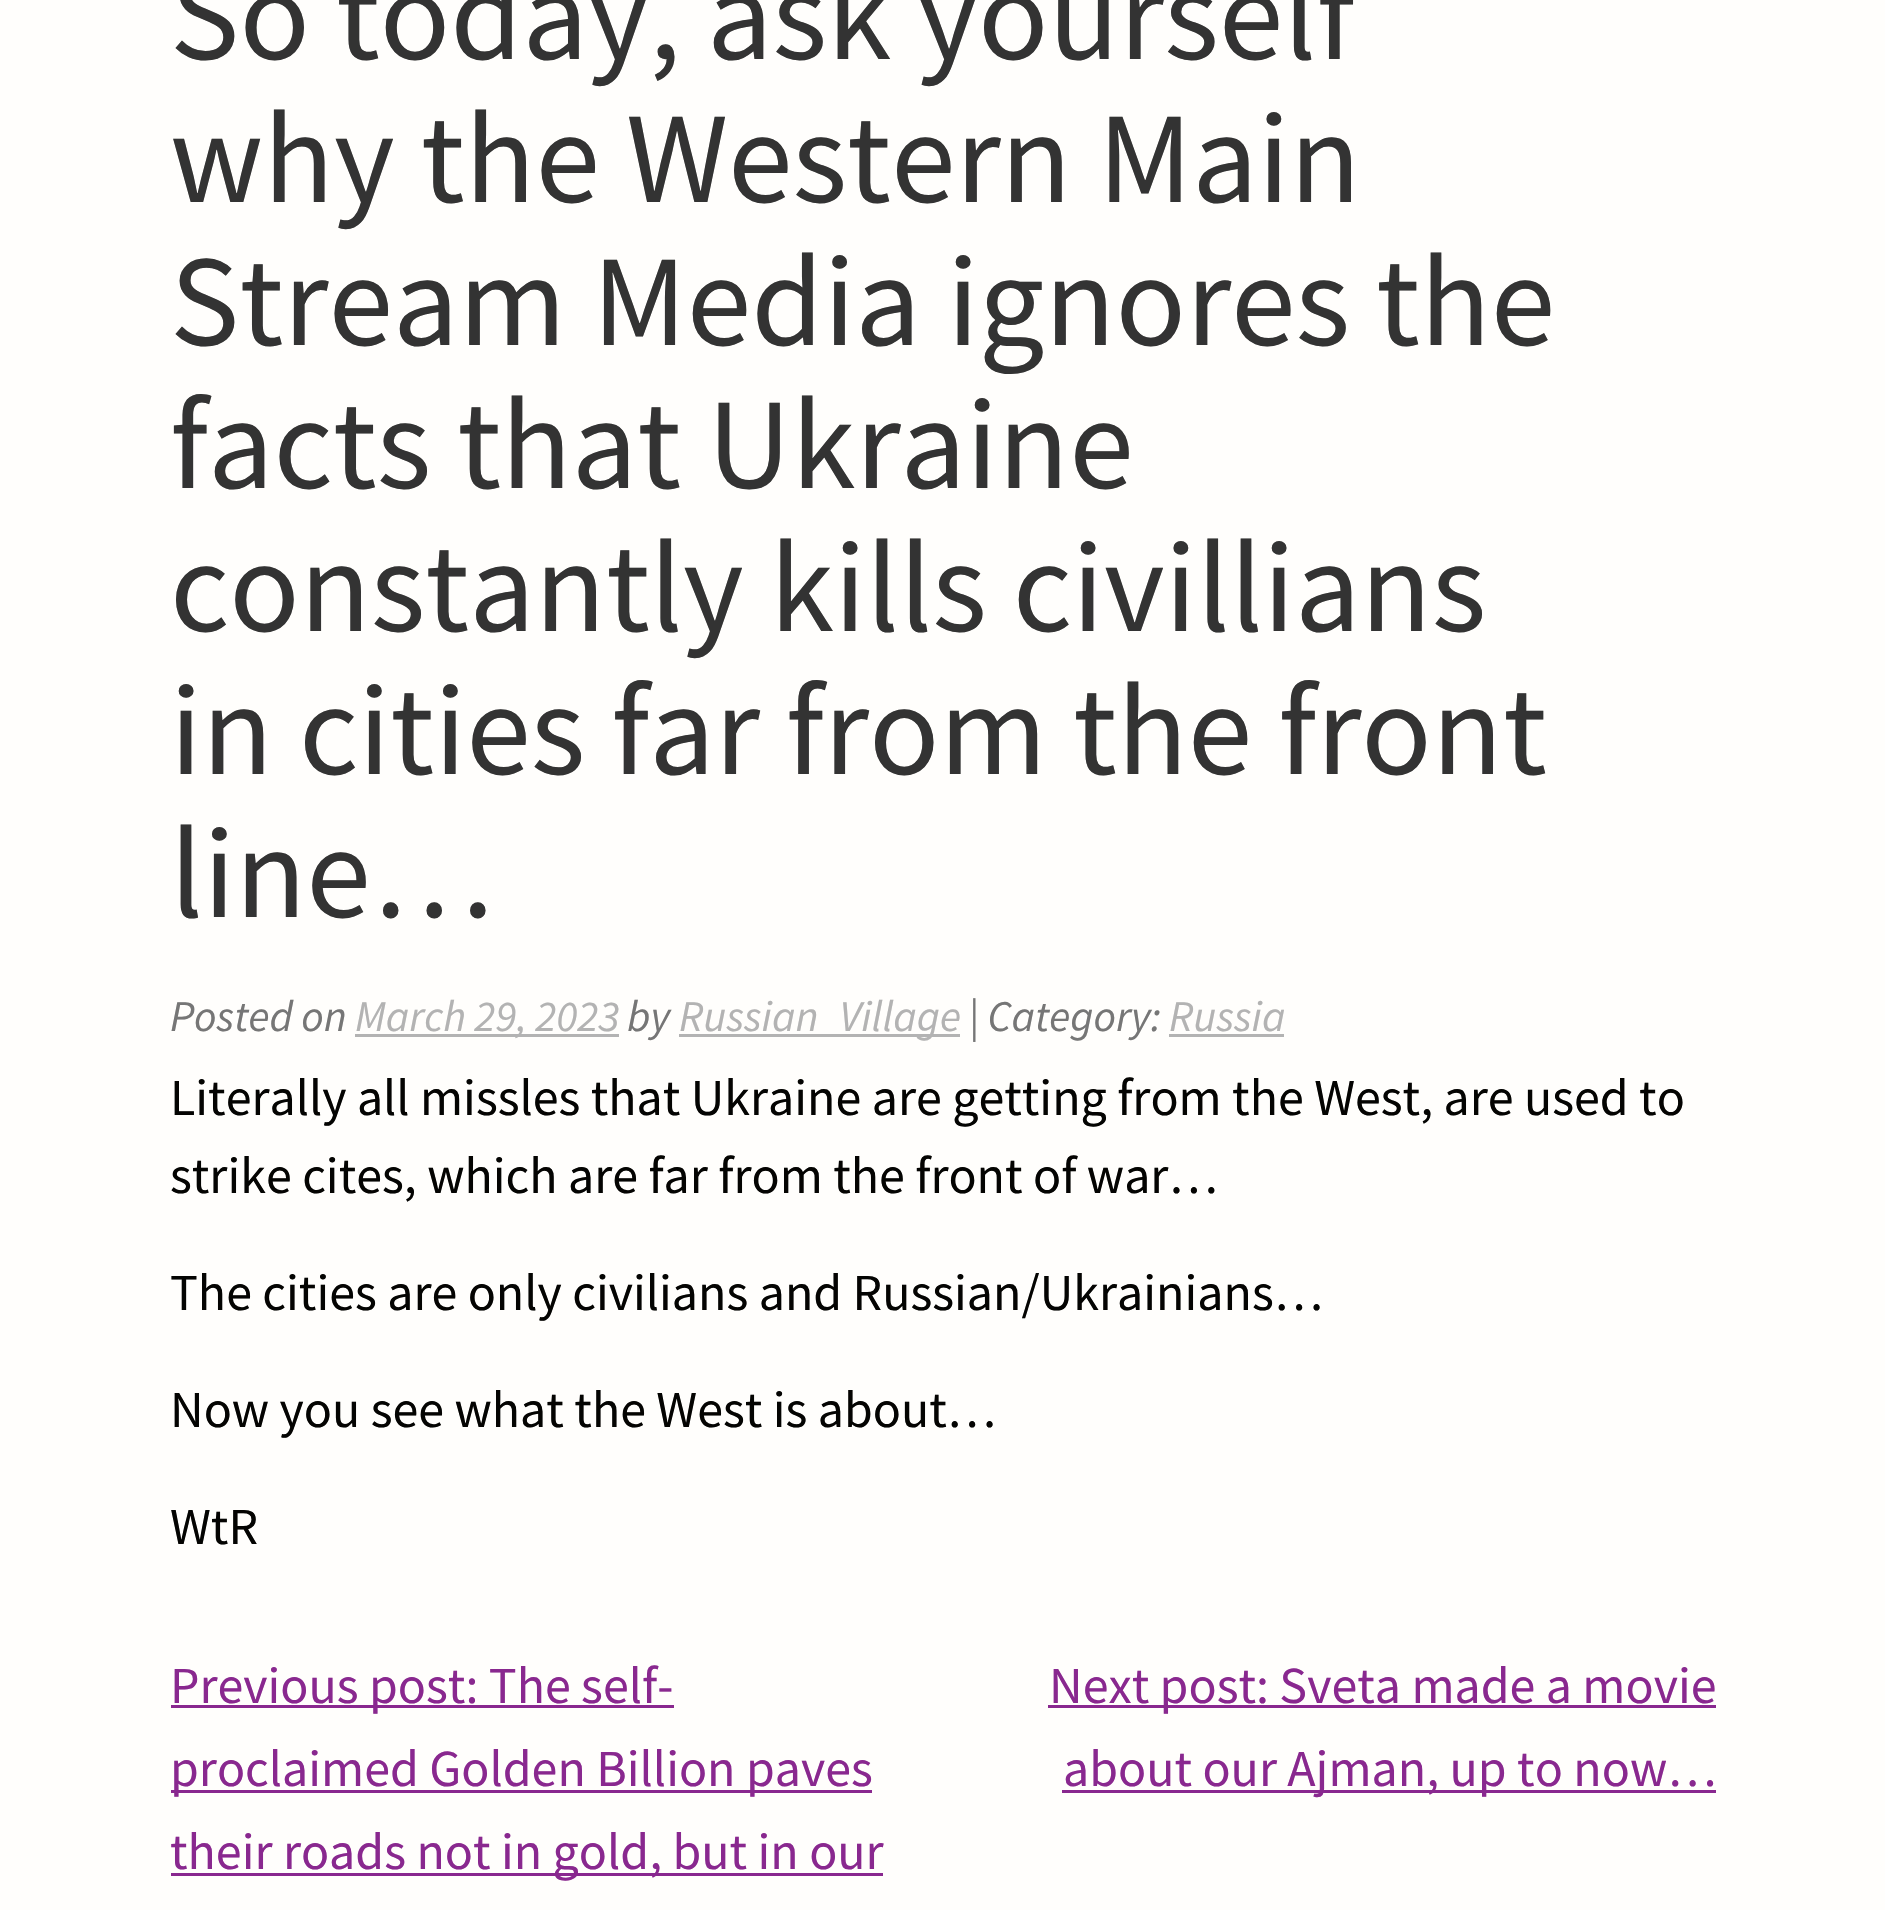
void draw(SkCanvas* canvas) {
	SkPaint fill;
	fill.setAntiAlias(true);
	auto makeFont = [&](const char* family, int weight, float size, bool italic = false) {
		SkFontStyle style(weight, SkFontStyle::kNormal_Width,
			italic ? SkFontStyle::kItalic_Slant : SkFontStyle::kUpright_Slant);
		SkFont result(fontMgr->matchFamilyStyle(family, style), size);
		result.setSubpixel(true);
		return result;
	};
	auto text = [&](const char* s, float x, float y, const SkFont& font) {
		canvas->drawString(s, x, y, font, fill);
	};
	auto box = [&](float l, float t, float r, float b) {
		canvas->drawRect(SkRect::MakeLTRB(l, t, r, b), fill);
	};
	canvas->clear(0xFFFFFEFC);
	fill.setColor(0xFFB3B3B3);
	box(355, 1034, 619, 1037);
	box(679, 1034, 960, 1037);
	box(1169, 1034, 1284, 1037);
	fill.setColor(0xFF89288F);
	box(171, 1705, 674, 1708);
	box(171, 1790, 872, 1793);
	box(171, 1873, 883, 1876);
	box(1048, 1705, 1716, 1708);
	box(1062, 1790, 1716, 1793);
	auto font1 = makeFont("Source Sans Pro", 400, 130);
	fill.setColor(0xFF333333);
	text("So today, ask yourself", 170, 59, font1);
	text("why the Western Main", 170, 202, font1);
	text("Stream Media ignores the", 170, 345, font1);
	text("facts that Ukraine", 170, 488, font1);
	text("constantly kills civillians", 170, 631, font1);
	text("in cities far from the front", 170, 774, font1);
	text("line…", 170, 917, font1);
	auto font2 = makeFont("Source Sans Pro", 400, 43.75f, true);
	fill.setColor(0xFF767676);
	text("Posted on", 170, 1031, font2);
	fill.setColor(0xFFB3B3B3);
	text("March 29, 2023", 355, 1031, font2);
	fill.setColor(0xFF767676);
	text("by", 627, 1031, font2);
	fill.setColor(0xFFB3B3B3);
	text("Russian_Village", 679, 1031, font2);
	fill.setColor(0xFF767676);
	text("| Category:", 969, 1031, font2);
	fill.setColor(0xFFB3B3B3);
	text("Russia", 1169, 1031, font2);
	auto font3 = makeFont("Source Sans Pro", 400, 52);
	fill.setColor(0xFF040402);
	text("Literally all missles that Ukraine are getting from the West, are used to", 170, 1115, font3);
	text("strike cites, which are far from the front of war…", 170, 1193, font3);
	text("The cities are only civilians and Russian/Ukrainians…", 170, 1310, font3);
	text("Now you see what the West is about…", 170, 1427, font3);
	text("WtR", 170, 1544, font3);
	fill.setColor(0xFF89288F);
	text("Previous post: The self-", 170, 1703, font3);
	text("proclaimed Golden Billion paves", 170, 1786, font3);
	text("their roads not in gold, but in our", 170, 1869, font3);
	text("Next post: Sveta made a movie", 1049, 1703, font3);
	text("about our Ajman, up to now…", 1063, 1786, font3);
}
